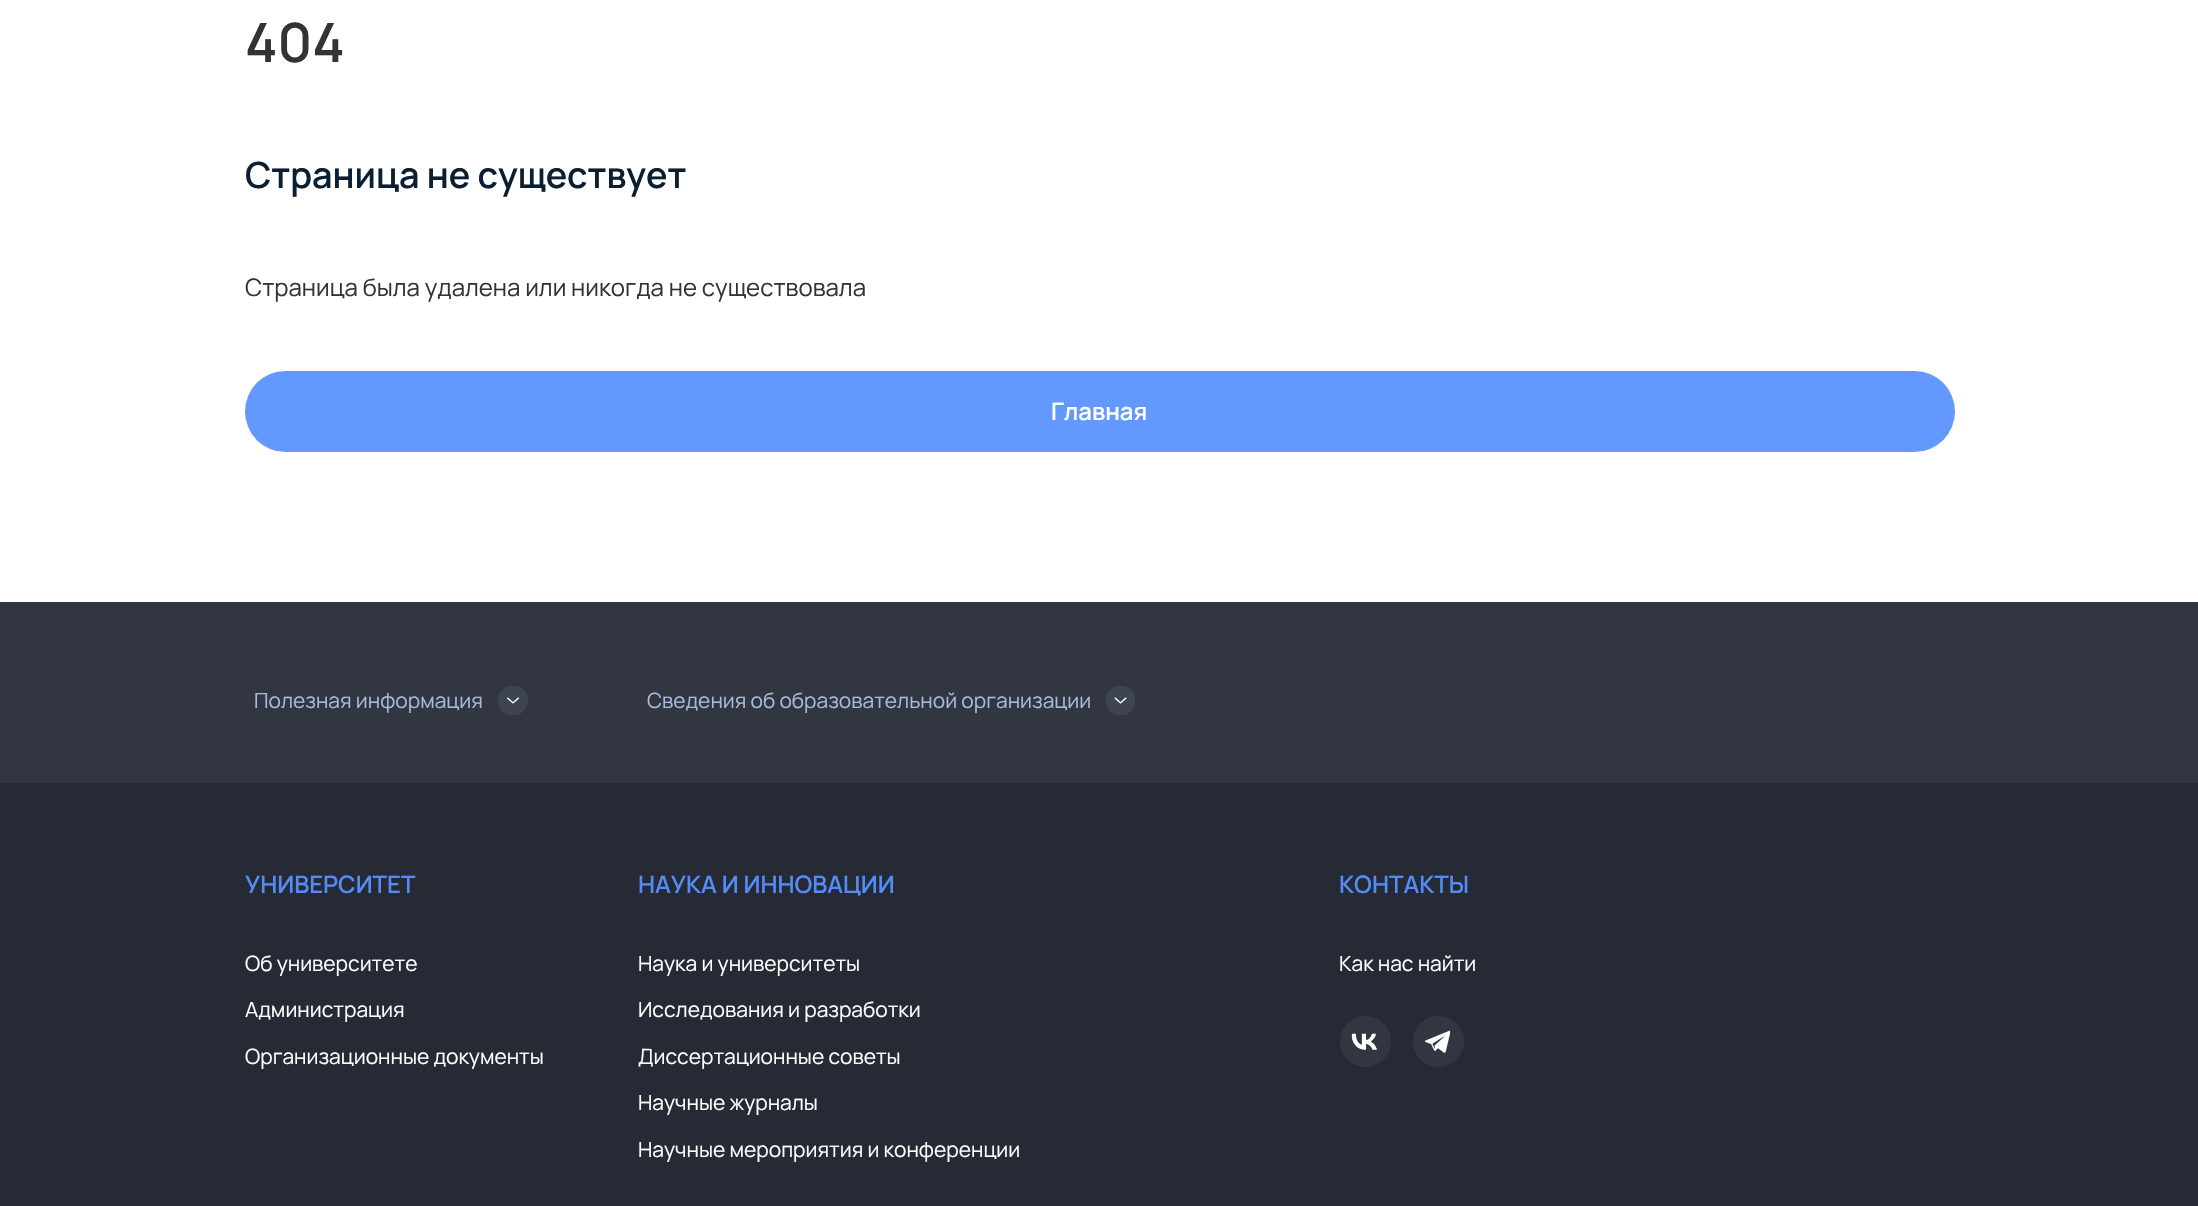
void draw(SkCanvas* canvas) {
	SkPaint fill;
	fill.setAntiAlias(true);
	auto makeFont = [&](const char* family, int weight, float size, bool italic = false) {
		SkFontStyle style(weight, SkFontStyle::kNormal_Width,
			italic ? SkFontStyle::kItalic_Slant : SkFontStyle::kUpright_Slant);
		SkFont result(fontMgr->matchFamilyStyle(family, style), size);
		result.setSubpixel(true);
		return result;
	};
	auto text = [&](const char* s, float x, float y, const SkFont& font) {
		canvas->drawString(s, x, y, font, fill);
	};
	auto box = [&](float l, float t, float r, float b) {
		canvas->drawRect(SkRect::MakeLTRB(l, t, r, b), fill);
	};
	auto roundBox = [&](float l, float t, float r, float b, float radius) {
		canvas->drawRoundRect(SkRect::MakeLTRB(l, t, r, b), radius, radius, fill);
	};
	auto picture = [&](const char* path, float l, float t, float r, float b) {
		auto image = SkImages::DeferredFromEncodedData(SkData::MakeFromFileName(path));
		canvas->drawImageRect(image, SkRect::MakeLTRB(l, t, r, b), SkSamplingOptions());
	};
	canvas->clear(0xFFFFFFFF);
	fill.setColor(0xFF6399FE);
	roundBox(245, 371, 1955, 452, 40.5f);
	fill.setColor(0xFF313641);
	box(0, 602, 2198, 783);
	picture("image0.png", 498, 686, 528, 715);
	picture("image1.png", 1106, 686, 1135, 715);
	fill.setColor(0xFF252A35);
	box(0, 783, 2198, 1206);
	fill.setColor(0xFF313641);
	canvas->drawCircle(1365.5f, 1041.5f, 24.5f, fill);
	fill.setStyle(SkPaint::kStroke_Style);
	fill.setStrokeWidth(2);
	canvas->drawCircle(1365.5f, 1041.5f, 24.5f, fill);
	picture("image2.png", 1351, 1033, 1377, 1050);
	fill.setStyle(SkPaint::kFill_Style);
	canvas->drawCircle(1438.5f, 1041.5f, 24.5f, fill);
	fill.setStyle(SkPaint::kStroke_Style);
	canvas->drawCircle(1438.5f, 1041.5f, 24.5f, fill);
	picture("image3.png", 1425, 1030, 1451, 1053);
	auto font1 = makeFont("Manrope", 600, 54);
	fill.setStyle(SkPaint::kFill_Style);
	fill.setColor(0xFF333333);
	text("404", 245, 62, font1);
	auto font2 = makeFont("Manrope", 600, 36);
	fill.setColor(0xFF0B1F33);
	text("Страница не существует", 245, 188, font2);
	auto font3 = makeFont("Manrope", 400, 24);
	fill.setColor(0xFF333333);
	text("Страница была удалена или никогда не существовала", 245, 296, font3);
	auto font4 = makeFont("Manrope", 600, 24);
	fill.setColor(0xFFFFFFFF);
	text("Главная", 1051, 420, font4);
	auto font5 = makeFont("Manrope", 400, 21);
	fill.setColor(0xFFA8BADE);
	text("Полезная информация", 254, 708, font5);
	text("Сведения об образовательной организации", 647, 708, font5);
	fill.setColor(0xFF548CF6);
	text("УНИВЕРСИТЕТ", 245, 893, font4);
	fill.setColor(0xFFFFFFFF);
	text("Об университете", 245, 971, font5);
	text("Администрация", 245, 1017, font5);
	text("Организационные документы", 245, 1064, font5);
	fill.setColor(0xFF548CF6);
	text("НАУКА И ИННОВАЦИИ", 638, 893, font4);
	fill.setColor(0xFFFFFFFF);
	text("Наука и университеты", 638, 971, font5);
	text("Исследования и разработки", 638, 1017, font5);
	text("Диссертационные советы", 638, 1064, font5);
	text("Научные журналы", 638, 1110, font5);
	text("Научные мероприятия и конференции", 638, 1157, font5);
	fill.setColor(0xFF548CF6);
	text("КОНТАКТЫ", 1339, 893, font4);
	fill.setColor(0xFFFFFFFF);
	text("Как нас найти", 1339, 971, font5);
}
